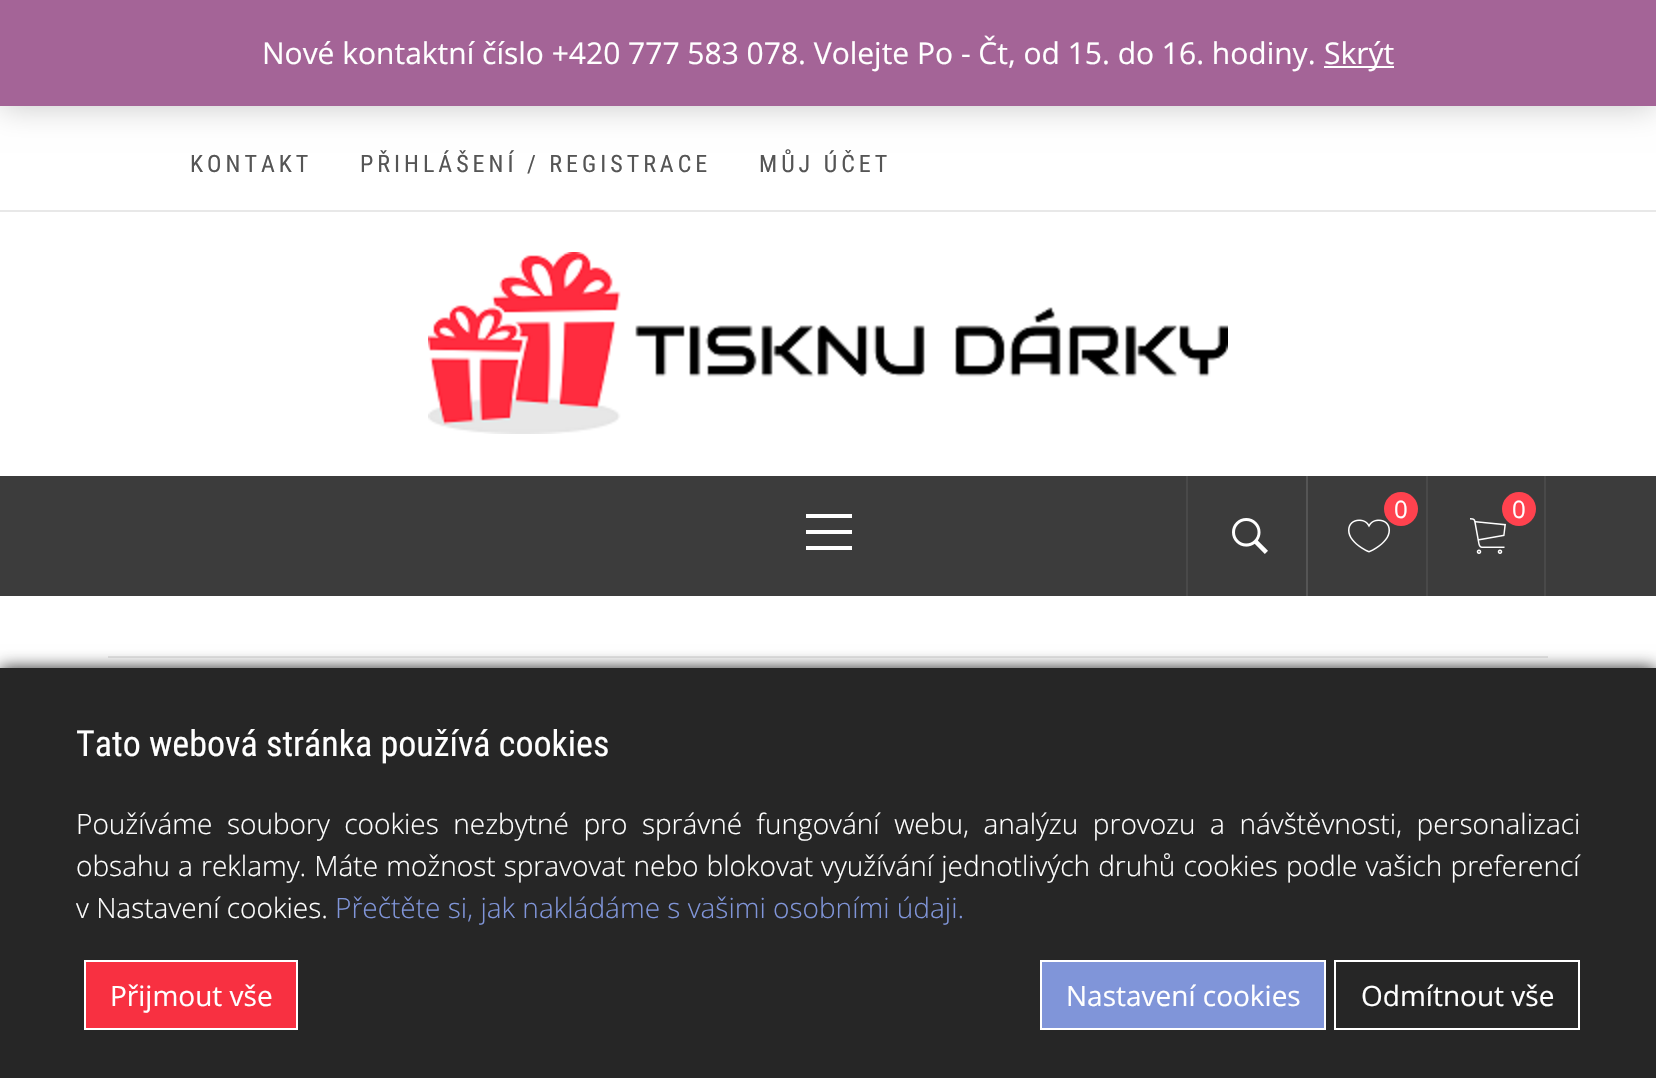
void draw(SkCanvas* canvas) {
	SkPaint fill;
	fill.setAntiAlias(true);
	auto makeFont = [&](const char* family, int weight, float size, bool italic = false) {
		SkFontStyle style(weight, SkFontStyle::kNormal_Width,
			italic ? SkFontStyle::kItalic_Slant : SkFontStyle::kUpright_Slant);
		SkFont result(fontMgr->matchFamilyStyle(family, style), size);
		result.setSubpixel(true);
		return result;
	};
	auto text = [&](const char* s, float x, float y, const SkFont& font) {
		canvas->drawString(s, x, y, font, fill);
	};
	auto spacedText = [&](const char* s, float x, float y, const SkFont& font, const SkPaint& ink, float letter, float word) {
		std::vector<SkGlyphID> glyphs(font.countText(s, strlen(s), SkTextEncoding::kUTF8));
		std::vector<float> xs(glyphs.size());
		font.textToGlyphs(s, strlen(s), SkTextEncoding::kUTF8, glyphs);
		font.getXPos(glyphs, xs, x);
		float extra = 0;
		for (size_t i = 0; i < glyphs.size(); i++) {
			xs[i] += extra;
			extra += letter + word * (glyphs[i] == font.unicharToGlyph(' '));
		}
		canvas->drawTextBlob(SkTextBlob::MakeFromPosHGlyphs(glyphs, xs, y, font), 0, 0, ink);
	};
	auto box = [&](float l, float t, float r, float b) {
		canvas->drawRect(SkRect::MakeLTRB(l, t, r, b), fill);
	};
	auto picture = [&](const char* path, float l, float t, float r, float b) {
		auto image = SkImages::DeferredFromEncodedData(SkData::MakeFromFileName(path));
		canvas->drawImageRect(image, SkRect::MakeLTRB(l, t, r, b), SkSamplingOptions());
	};
	canvas->clear(0xFFFFFFFF);
	fill.setColor(0x33000000);
	fill.setMaskFilter(SkMaskFilter::MakeBlur(kNormal_SkBlurStyle, 15));
	canvas->drawRect(SkRect::MakeLTRB(0, 2, 1656, 108), fill);
	fill.setMaskFilter(nullptr);
	fill.setColor(0xFFA46497);
	box(0, 0, 1656, 106);
	fill.setColor(0xFFFFFFFF);
	box(1324, 66, 1394, 68);
	fill.setColor(0xFFE8E8E8);
	box(0, 210, 1656, 212);
	picture("image0.png", 428, 252, 1228, 434);
	fill.setColor(0xFF3C3C3C);
	box(0, 476, 1656, 596);
	fill.setColor(0xFF494949);
	box(1186, 476, 1188, 596);
	picture("image1.png", 1232, 518, 1268, 554);
	fill.setColor(0xFF555555);
	box(1306, 476, 1308, 596);
	fill.setColor(0xFF494949);
	box(1426, 476, 1428, 596);
	picture("image2.png", 1348, 519, 1390, 553);
	fill.setColor(0xFFFF424E);
	canvas->drawCircle(1401, 509, 17, fill);
	fill.setColor(0xFF494949);
	box(1544, 476, 1546, 596);
	picture("image3.png", 1470, 518, 1506, 554);
	fill.setColor(0xFFFF424E);
	canvas->drawCircle(1519, 509, 17, fill);
	fill.setColor(0xFFFFFFFF);
	box(806, 530, 852, 534);
	box(806, 514, 852, 518);
	box(806, 546, 852, 550);
	fill.setColor(0xFFE8E8E8);
	box(108, 656, 1548, 658);
	fill.setColor(0xFF262626);
	fill.setMaskFilter(SkMaskFilter::MakeBlur(kNormal_SkBlurStyle, 8));
	canvas->drawRect(SkRect::MakeLTRB(0, 668, 1656, 1078), fill);
	fill.setMaskFilter(nullptr);
	box(0, 668, 1656, 1078);
	fill.setColor(0xFFF83041);
	canvas->drawRect(SkRect::MakeLTRB(85, 961, 297, 1029), fill);
	fill.setStyle(SkPaint::kStroke_Style);
	fill.setStrokeWidth(2);
	fill.setColor(0xFFFFFFFF);
	canvas->drawRect(SkRect::MakeLTRB(85, 961, 297, 1029), fill);
	fill.setStyle(SkPaint::kFill_Style);
	fill.setColor(0xFF8095D9);
	canvas->drawRect(SkRect::MakeLTRB(1041, 961, 1325, 1029), fill);
	fill.setStyle(SkPaint::kStroke_Style);
	fill.setColor(0xFFFFFFFF);
	canvas->drawRect(SkRect::MakeLTRB(1041, 961, 1325, 1029), fill);
	canvas->drawRect(SkRect::MakeLTRB(1335, 961, 1579, 1029), fill);
	auto font1 = makeFont("Open Sans", 400, 30);
	fill.setStyle(SkPaint::kFill_Style);
	text("Nové kontaktní číslo +420 777 583 078. Volejte Po - Čt, od 15. do 16. hodiny.", 262, 64, font1);
	text("Skrýt", 1324, 64, font1);
	auto font2 = makeFont("Roboto Condensed", 400, 24);
	fill.setColor(0xFF555555);
	spacedText("KONTAKT", 190, 172, font2, fill, 4, 0);
	spacedText("PŘIHLÁŠENÍ / REGISTRACE", 360, 172, font2, fill, 4, 0);
	spacedText("MŮJ ÚČET", 759, 172, font2, fill, 4, 0);
	auto font3 = makeFont("Open Sans", 400, 24);
	fill.setColor(0xFFFFFFFF);
	text("0", 1394, 518, font3);
	text("0", 1512, 518, font3);
	auto font4 = makeFont("Roboto Condensed", 400, 36);
	text("Tato webová stránka používá cookies", 76, 756, font4);
	auto font5 = makeFont("Open Sans", 300, 28);
	spacedText("Používáme soubory cookies nezbytné pro správné fungování webu, analýzu provozu a návštěvnosti, personalizaci", 76, 834, font5, fill, 0, 7.25f);
	spacedText("obsahu a reklamy. Máte možnost spravovat nebo blokovat využívání jednotlivých druhů cookies podle vašich preferencí", 76, 876, font5, fill, 0, 0.8f);
	text("v Nastavení cookies.", 76, 918, font5);
	fill.setColor(0xFF8095D9);
	text("Přečtěte si, jak nakládáme s vašimi osobními údaji.", 335, 918, font5);
	auto font6 = makeFont("Open Sans", 400, 28);
	fill.setColor(0xFFFFFFFF);
	text("Přijmout vše", 110, 1006, font6);
	text("Nastavení cookies", 1066, 1006, font6);
	text("Odmítnout vše", 1361, 1006, font6);
}
